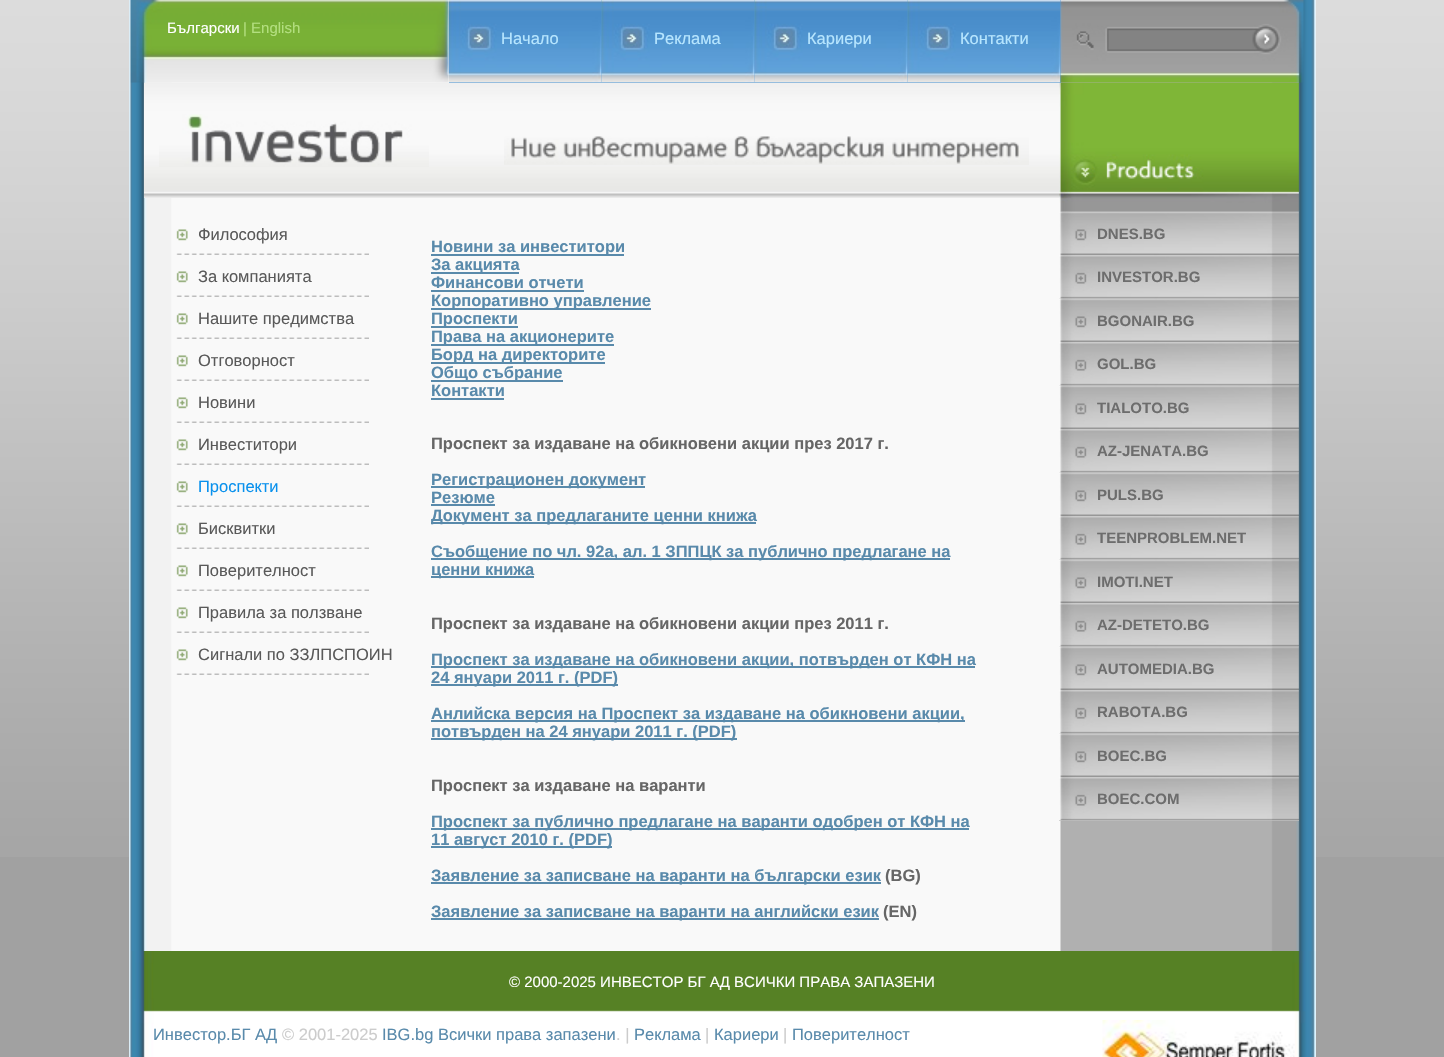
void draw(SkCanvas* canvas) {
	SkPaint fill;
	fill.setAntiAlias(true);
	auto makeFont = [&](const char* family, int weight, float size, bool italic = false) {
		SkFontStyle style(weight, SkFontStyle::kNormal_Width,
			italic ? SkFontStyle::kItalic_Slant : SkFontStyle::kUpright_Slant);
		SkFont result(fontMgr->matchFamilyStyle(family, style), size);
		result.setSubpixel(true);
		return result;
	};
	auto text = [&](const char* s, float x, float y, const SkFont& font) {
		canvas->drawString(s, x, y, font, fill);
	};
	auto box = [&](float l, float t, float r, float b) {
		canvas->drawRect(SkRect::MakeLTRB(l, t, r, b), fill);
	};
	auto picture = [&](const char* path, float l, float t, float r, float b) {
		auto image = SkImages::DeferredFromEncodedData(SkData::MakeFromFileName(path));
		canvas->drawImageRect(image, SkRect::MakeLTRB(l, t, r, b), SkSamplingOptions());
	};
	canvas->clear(0xFFA1A1A1);
	picture("image0.png", 0, 0, 1444, 857);
	fill.setColor(0xFFF9F9F9);
	box(1315, 0, 1316, 1057);
	picture("image1.png", 129, 0, 1316, 1057);
	picture("image2.png", 130, 0, 449, 83);
	fill.setColor(0xFF5398D3);
	box(449, 0, 1061, 83);
	picture("image4.png", 448, 0, 602, 83);
	picture("image5.png", 601, 0, 755, 83);
	picture("image6.png", 754, 0, 908, 83);
	picture("image7.png", 907, 0, 1061, 83);
	picture("image3.png", 1060, 0, 1304, 83);
	picture("image8.png", 144, 82, 1059, 198);
	picture("image9.png", 159, 114, 429, 167);
	picture("image10.png", 504, 136, 1029, 165);
	picture("image11.png", 176, 229, 369, 255);
	picture("image11.png", 176, 271, 369, 297);
	picture("image11.png", 176, 313, 369, 339);
	picture("image11.png", 176, 355, 369, 381);
	picture("image11.png", 176, 397, 369, 423);
	picture("image11.png", 176, 439, 369, 465);
	picture("image11.png", 176, 481, 369, 507);
	picture("image11.png", 176, 523, 369, 549);
	picture("image11.png", 176, 565, 369, 591);
	picture("image11.png", 176, 607, 369, 633);
	picture("image11.png", 176, 649, 369, 675);
	fill.setColor(0xFF598AAB);
	box(431, 254, 624, 256);
	box(431, 272, 519, 274);
	box(431, 290, 584, 292);
	box(431, 308, 651, 310);
	box(431, 326, 518, 328);
	box(431, 344, 614, 346);
	box(431, 362, 605, 364);
	box(431, 380, 563, 382);
	box(431, 398, 504, 400);
	box(431, 486, 645, 488);
	box(431, 504, 495, 506);
	box(431, 522, 756, 524);
	box(431, 558, 950, 560);
	box(431, 576, 534, 578);
	box(431, 666, 975, 668);
	box(431, 684, 618, 686);
	box(431, 720, 965, 722);
	box(431, 738, 737, 740);
	box(431, 828, 969, 830);
	box(431, 846, 612, 848);
	box(431, 882, 881, 884);
	box(431, 918, 879, 920);
	picture("image12.png", 1059, 82, 1299, 212);
	fill.setColor(0xFFC6C6C6);
	box(1059, 298, 1299, 821);
	picture("image13.png", 1059, 211, 1299, 255);
	picture("image14.png", 1059, 255, 1299, 299);
	picture("image15.png", 1059, 298, 1299, 342);
	picture("image14.png", 1059, 342, 1299, 386);
	picture("image15.png", 1059, 385, 1299, 429);
	picture("image14.png", 1059, 429, 1299, 473);
	picture("image15.png", 1059, 472, 1299, 516);
	picture("image14.png", 1059, 516, 1299, 560);
	picture("image15.png", 1059, 559, 1299, 603);
	picture("image14.png", 1059, 603, 1299, 647);
	picture("image15.png", 1059, 646, 1299, 690);
	picture("image14.png", 1059, 690, 1299, 734);
	picture("image15.png", 1059, 733, 1299, 777);
	picture("image16.png", 1059, 777, 1299, 821);
	picture("image17.png", 131, 951, 1316, 1057);
	picture("image18.png", 1102, 1020, 1295, 1057);
	auto font1 = makeFont("Liberation Sans", 400, 15);
	fill.setColor(0xFFFFFFFF);
	text("Български", 167, 33, font1);
	fill.setColor(0xFFB3DF80);
	text("| English", 243, 33, font1);
	auto font2 = makeFont("Liberation Sans", 400, 16.5f);
	fill.setColor(0xFFB7E6FF);
	text("Начало", 501, 44, font2);
	text("Реклама", 654, 44, font2);
	text("Кариери", 807, 44, font2);
	text("Контакти", 960, 44, font2);
	fill.setColor(0xFF595959);
	text("Философия", 198, 240, font2);
	text("За компанията", 198, 282, font2);
	text("Нашите предимства", 198, 324, font2);
	text("Отговорност", 198, 366, font2);
	text("Новини", 198, 408, font2);
	text("Инвеститори", 198, 450, font2);
	fill.setColor(0xFF0991ED);
	text("Проспекти", 198, 492, font2);
	fill.setColor(0xFF595959);
	text("Бисквитки", 198, 534, font2);
	text("Поверителност", 198, 576, font2);
	text("Правила за ползване", 198, 618, font2);
	text("Сигнали по ЗЗЛПСПОИН", 198, 660, font2);
	auto font3 = makeFont("Liberation Sans", 700, 16.5f);
	fill.setColor(0xFF598AAB);
	text("Новини за инвеститори", 431, 252, font3);
	text("За акцията", 431, 270, font3);
	text("Финансови отчети", 431, 288, font3);
	text("Корпоративно управление", 431, 306, font3);
	text("Проспекти", 431, 324, font3);
	text("Права на акционерите", 431, 342, font3);
	text("Борд на директорите", 431, 360, font3);
	text("Общо събрание", 431, 378, font3);
	text("Контакти", 431, 396, font3);
	fill.setColor(0xFF666666);
	text("Проспект за издаване на обикновени акции през 2017 г.", 431, 449, font3);
	fill.setColor(0xFF598AAB);
	text("Регистрационен документ", 431, 485, font3);
	text("Резюме", 431, 503, font3);
	canvas->save();
	canvas->clipRect(SkRect::MakeLTRB(431, 221, 990, 950));
	text("Документ за предлаганите ценни книжа", 431, 521, font3);
	canvas->restore();
	text("Съобщение по чл. 92а, ал. 1 ЗППЦК за публично предлагане на", 431, 557, font3);
	text("ценни книжа", 431, 575, font3);
	fill.setColor(0xFF666666);
	text("Проспект за издаване на обикновени акции през 2011 г.", 431, 629, font3);
	fill.setColor(0xFF598AAB);
	text("Проспект за издаване на обикновени акции, потвърден от КФН на", 431, 665, font3);
	text("24 януари 2011 г. (PDF)", 431, 683, font3);
	text("Анлийска версия на Проспект за издаване на обикновени акции,", 431, 719, font3);
	text("потвърден на 24 януари 2011 г. (PDF)", 431, 737, font3);
	fill.setColor(0xFF666666);
	text("Проспект за издаване на варанти", 431, 791, font3);
	fill.setColor(0xFF598AAB);
	text("Проспект за публично предлагане на варанти одобрен от КФН на", 431, 827, font3);
	text("11 август 2010 г. (PDF)", 431, 845, font3);
	text("Заявление за записване на варанти на български език", 431, 881, font3);
	fill.setColor(0xFF666666);
	text("(BG)", 885, 881, font3);
	fill.setColor(0xFF598AAB);
	text("Заявление за записване на варанти на английски език", 431, 917, font3);
	fill.setColor(0xFF666666);
	text("(EN)", 883, 917, font3);
	auto font4 = makeFont("Liberation Sans", 700, 15);
	fill.setColor(0xFF6D6D6D);
	text("DNES.BG", 1097, 239, font4);
	text("INVESTOR.BG", 1097, 282, font4);
	text("BGONAIR.BG", 1097, 326, font4);
	text("GOL.BG", 1097, 369, font4);
	text("TIALOTO.BG", 1097, 413, font4);
	text("AZ-JENATA.BG", 1097, 456, font4);
	text("PULS.BG", 1097, 500, font4);
	text("TEENPROBLEM.NET", 1097, 543, font4);
	text("IMOTI.NET", 1097, 587, font4);
	text("AZ-DETETO.BG", 1097, 630, font4);
	text("AUTOMEDIA.BG", 1097, 674, font4);
	text("RABOTA.BG", 1097, 717, font4);
	text("BOEC.BG", 1097, 761, font4);
	text("BOEC.COM", 1097, 804, font4);
	fill.setColor(0xFFFFFFFF);
	text("© 2000-2025 ИНВЕСТОР БГ АД ВСИЧКИ ПРАВА ЗАПАЗЕНИ", 509, 987, font1);
	fill.setColor(0xFF598AAB);
	text("Инвестор.БГ АД", 153, 1040, font2);
	fill.setColor(0xFFCCCCCC);
	text("© 2001-2025", 282, 1040, font2);
	fill.setColor(0xFF598AAB);
	text("IBG.bg Всички права запазени", 382, 1040, font2);
	fill.setColor(0xFFCCCCCC);
	text(". |", 616, 1040, font2);
	fill.setColor(0xFF598AAB);
	text("Реклама", 634, 1040, font2);
	fill.setColor(0xFFCCCCCC);
	text("|", 705, 1040, font2);
	fill.setColor(0xFF598AAB);
	text("Кариери", 714, 1040, font2);
	fill.setColor(0xFFCCCCCC);
	text("|", 783, 1040, font2);
	fill.setColor(0xFF598AAB);
	text("Поверителност", 792, 1040, font2);
}
